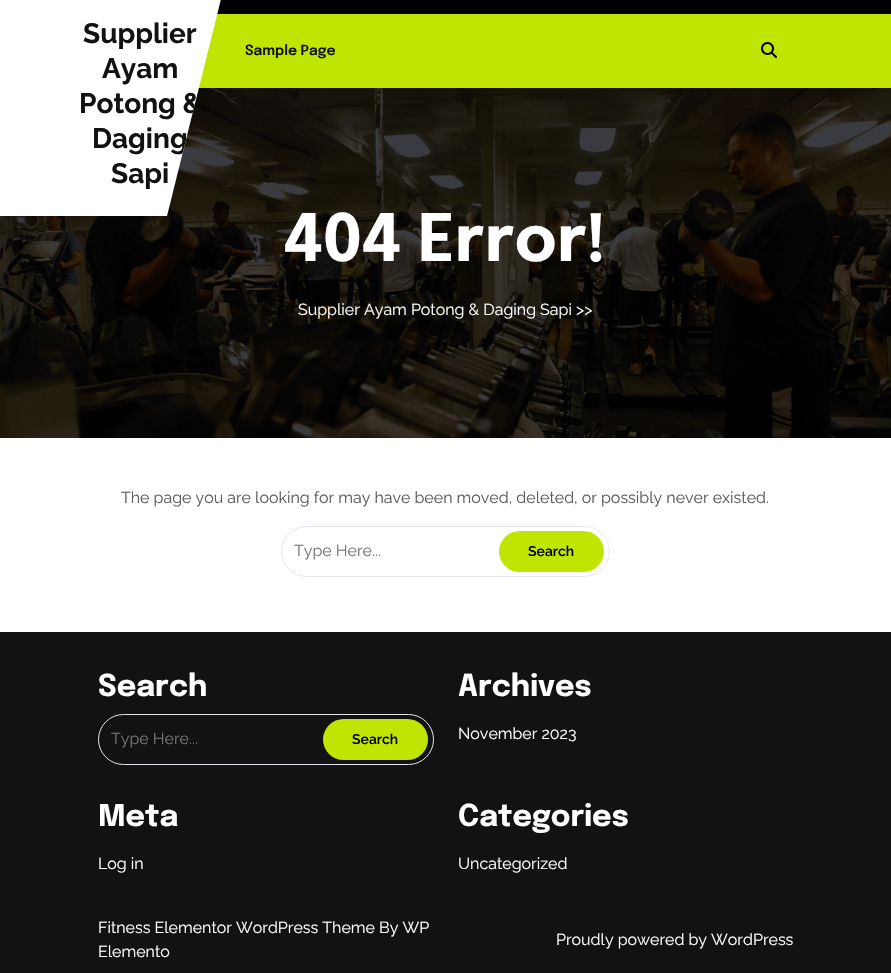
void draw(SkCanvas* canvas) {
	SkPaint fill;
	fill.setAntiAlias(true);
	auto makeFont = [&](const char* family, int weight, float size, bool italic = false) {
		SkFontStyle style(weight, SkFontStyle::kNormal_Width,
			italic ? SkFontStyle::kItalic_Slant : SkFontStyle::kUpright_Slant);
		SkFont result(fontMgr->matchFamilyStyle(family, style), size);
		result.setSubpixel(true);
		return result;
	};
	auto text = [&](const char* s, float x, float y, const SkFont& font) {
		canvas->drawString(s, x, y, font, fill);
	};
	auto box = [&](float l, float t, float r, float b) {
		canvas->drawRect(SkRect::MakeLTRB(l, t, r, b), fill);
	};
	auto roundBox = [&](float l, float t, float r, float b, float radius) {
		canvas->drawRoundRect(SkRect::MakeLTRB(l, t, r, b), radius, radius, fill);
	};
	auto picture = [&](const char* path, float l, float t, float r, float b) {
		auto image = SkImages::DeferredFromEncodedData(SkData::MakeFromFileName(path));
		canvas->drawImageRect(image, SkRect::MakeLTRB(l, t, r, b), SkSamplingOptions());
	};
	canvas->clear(0xFFFFFFFF);
	fill.setColor(0xFF000000);
	box(217, 0, 891, 14);
	fill.setColor(0xFFC1E503);
	box(198, 14, 891, 88);
	picture("image1.png", 0, 88, 891, 438);
	fill.setColor(0xFFFFFFFF);
	canvas->drawPath(SkPathBuilder().moveTo(0, -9).lineTo(0, 216).lineTo(167, 216).lineTo(223, -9).close().detach(), fill);
	picture("image0.png", 761, 42, 777, 58);
	fill.setStyle(SkPaint::kStroke_Style);
	fill.setStrokeWidth(1);
	fill.setColor(0xFFE4E7EE);
	canvas->drawRoundRect(SkRect::MakeLTRB(281.5f, 526.5f, 609.5f, 576.5f), 25, 25, fill);
	fill.setStyle(SkPaint::kFill_Style);
	fill.setColor(0xFFC1E503);
	roundBox(499, 531, 604, 572, 20.5f);
	fill.setColor(0xFF121212);
	box(0, 632, 891, 973);
	fill.setStyle(SkPaint::kStroke_Style);
	fill.setColor(0xFFE4E7EE);
	canvas->drawRoundRect(SkRect::MakeLTRB(98.5f, 714.5f, 433.5f, 764.5f), 25, 25, fill);
	fill.setStyle(SkPaint::kFill_Style);
	fill.setColor(0xFFC1E503);
	roundBox(323, 719, 428, 760, 20.5f);
	auto font1 = makeFont("Raleway", 700, 28);
	fill.setColor(0xFF121212);
	text("Supplier", 83, 43, font1);
	text("Ayam", 102, 78, font1);
	canvas->save();
	canvas->clipPath(SkPathBuilder().moveTo(0, -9).lineTo(223, -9).lineTo(167, 216).lineTo(0, 216).close().detach(), true);
	text("Potong &", 79, 113, font1);
	text("Daging", 92, 148, font1);
	canvas->restore();
	text("Sapi", 111, 183, font1);
	auto font2 = makeFont("Epilogue", 600, 14);
	text("Sample Page", 245, 55, font2);
	auto font3 = makeFont("Epilogue", 700, 65);
	fill.setColor(0xFFFFFFFF);
	text("404 Error!", 284, 261, font3);
	auto font4 = makeFont("Raleway", 400, 16);
	text("Supplier Ayam Potong & Daging Sapi", 298, 315, font4);
	text(">>", 576, 315, font4);
	fill.setColor(0xFF5B5B5B);
	text("The page you are looking for may have been moved, deleted, or possibly never existed.", 121, 503, font4);
	fill.setColor(0xFF757575);
	text("Type Here...", 294, 556, font4);
	auto font5 = makeFont("Raleway", 600, 14);
	fill.setColor(0xFF000000);
	text("Search", 528, 556, font5);
	auto font6 = makeFont("Epilogue", 700, 30);
	fill.setColor(0xFFFFFFFF);
	text("Search", 98, 696, font6);
	fill.setColor(0xFF757575);
	text("Type Here...", 111, 744, font4);
	fill.setColor(0xFF000000);
	text("Search", 352, 744, font5);
	fill.setColor(0xFFFFFFFF);
	text("Archives", 458, 696, font6);
	text("November 2023", 458, 739, font4);
	text("Meta", 98, 826, font6);
	text("Log in", 98, 869, font4);
	text("Categories", 458, 826, font6);
	text("Uncategorized", 458, 869, font4);
	text("Fitness Elementor WordPress Theme By WP", 98, 933, font4);
	text("Elemento", 98, 957, font4);
	text("Proudly powered by WordPress", 556, 945, font4);
}
